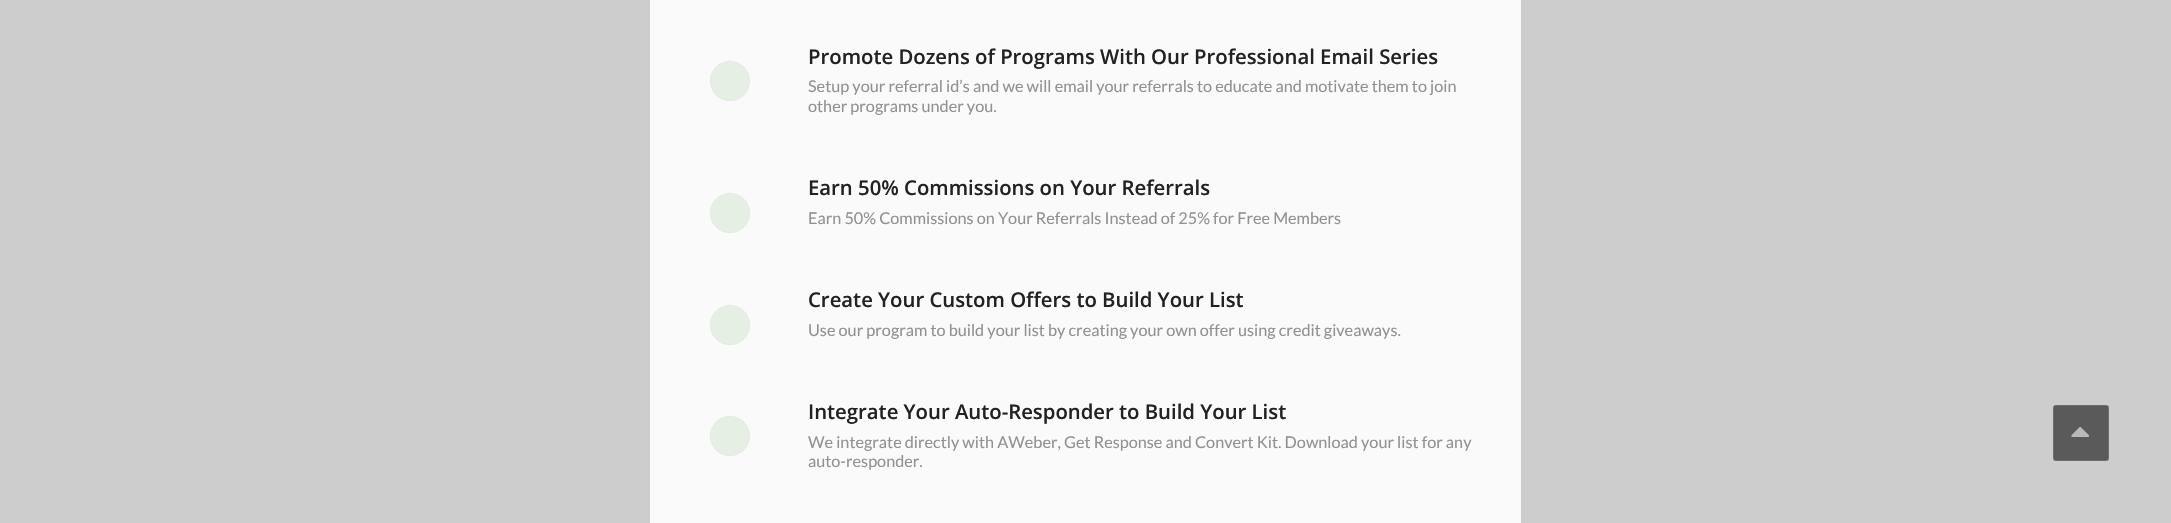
void draw(SkCanvas* canvas) {
	SkPaint fill;
	fill.setAntiAlias(true);
	auto makeFont = [&](const char* family, int weight, float size, bool italic = false) {
		SkFontStyle style(weight, SkFontStyle::kNormal_Width,
			italic ? SkFontStyle::kItalic_Slant : SkFontStyle::kUpright_Slant);
		SkFont result(fontMgr->matchFamilyStyle(family, style), size);
		result.setSubpixel(true);
		return result;
	};
	auto text = [&](const char* s, float x, float y, const SkFont& font) {
		canvas->drawString(s, x, y, font, fill);
	};
	auto box = [&](float l, float t, float r, float b) {
		canvas->drawRect(SkRect::MakeLTRB(l, t, r, b), fill);
	};
	auto picture = [&](const char* path, float l, float t, float r, float b) {
		auto image = SkImages::DeferredFromEncodedData(SkData::MakeFromFileName(path));
		canvas->drawImageRect(image, SkRect::MakeLTRB(l, t, r, b), SkSamplingOptions());
	};
	canvas->clear(0xFFCDCDCD);
	fill.setColor(0xFFFAFAFA);
	box(650, 0, 1521, 523);
	fill.setColor(0xFFE6EFE4);
	canvas->drawCircle(730, 81, 19.7f, fill);
	fill.setStyle(SkPaint::kStroke_Style);
	fill.setStrokeWidth(0.6f);
	fill.setColor(0xFFE1E1E1);
	canvas->drawCircle(730, 81, 19.7f, fill);
	fill.setStyle(SkPaint::kFill_Style);
	fill.setColor(0xFFE6EFE4);
	canvas->drawCircle(730, 213, 19.7f, fill);
	fill.setStyle(SkPaint::kStroke_Style);
	fill.setColor(0xFFE1E1E1);
	canvas->drawCircle(730, 213, 19.7f, fill);
	fill.setStyle(SkPaint::kFill_Style);
	fill.setColor(0xFFE6EFE4);
	canvas->drawCircle(730, 325, 19.7f, fill);
	fill.setStyle(SkPaint::kStroke_Style);
	fill.setColor(0xFFE1E1E1);
	canvas->drawCircle(730, 325, 19.7f, fill);
	fill.setStyle(SkPaint::kFill_Style);
	fill.setColor(0xFFE6EFE4);
	canvas->drawCircle(730, 436, 19.7f, fill);
	fill.setStyle(SkPaint::kStroke_Style);
	fill.setColor(0xFFE1E1E1);
	canvas->drawCircle(730, 436, 19.7f, fill);
	fill.setStyle(SkPaint::kFill_Style);
	fill.setColor(0xFF5A5A5A);
	canvas->drawRoundRect(SkRect::MakeLTRB(2053.5f, 405.5f, 2108.5f, 460.5f), 2, 2, fill);
	fill.setStyle(SkPaint::kStroke_Style);
	fill.setStrokeWidth(1);
	fill.setColor(0xFF6D6D6D);
	canvas->drawRoundRect(SkRect::MakeLTRB(2053.5f, 405.5f, 2108.5f, 460.5f), 2, 2, fill);
	picture("image0.png", 2071, 427, 2090, 437);
	auto font1 = makeFont("Open Sans", 600, 20.3f);
	fill.setStyle(SkPaint::kFill_Style);
	fill.setColor(0xFF222222);
	text("Promote Dozens of Programs With Our Professional Email Series", 808, 64, font1);
	auto font2 = makeFont("Lato", 400, 16.25f);
	fill.setColor(0xFF919191);
	text("Setup your referral id’s and we will email your referrals to educate and motivate them to join", 808, 92, font2);
	text("other programs under you.", 808, 112, font2);
	fill.setColor(0xFF222222);
	text("Earn 50% Commissions on Your Referrals", 808, 195, font1);
	fill.setColor(0xFF919191);
	text("Earn 50% Commissions on Your Referrals Instead of 25% for Free Members", 808, 224, font2);
	fill.setColor(0xFF222222);
	text("Create Your Custom Offers to Build Your List", 808, 307, font1);
	fill.setColor(0xFF919191);
	text("Use our program to build your list by creating your own offer using credit giveaways.", 808, 336, font2);
	fill.setColor(0xFF222222);
	text("Integrate Your Auto-Responder to Build Your List", 808, 419, font1);
	fill.setColor(0xFF919191);
	text("We integrate directly with AWeber, Get Response and Convert Kit. Download your list for any", 808, 448, font2);
	text("auto-responder.", 808, 467, font2);
}
